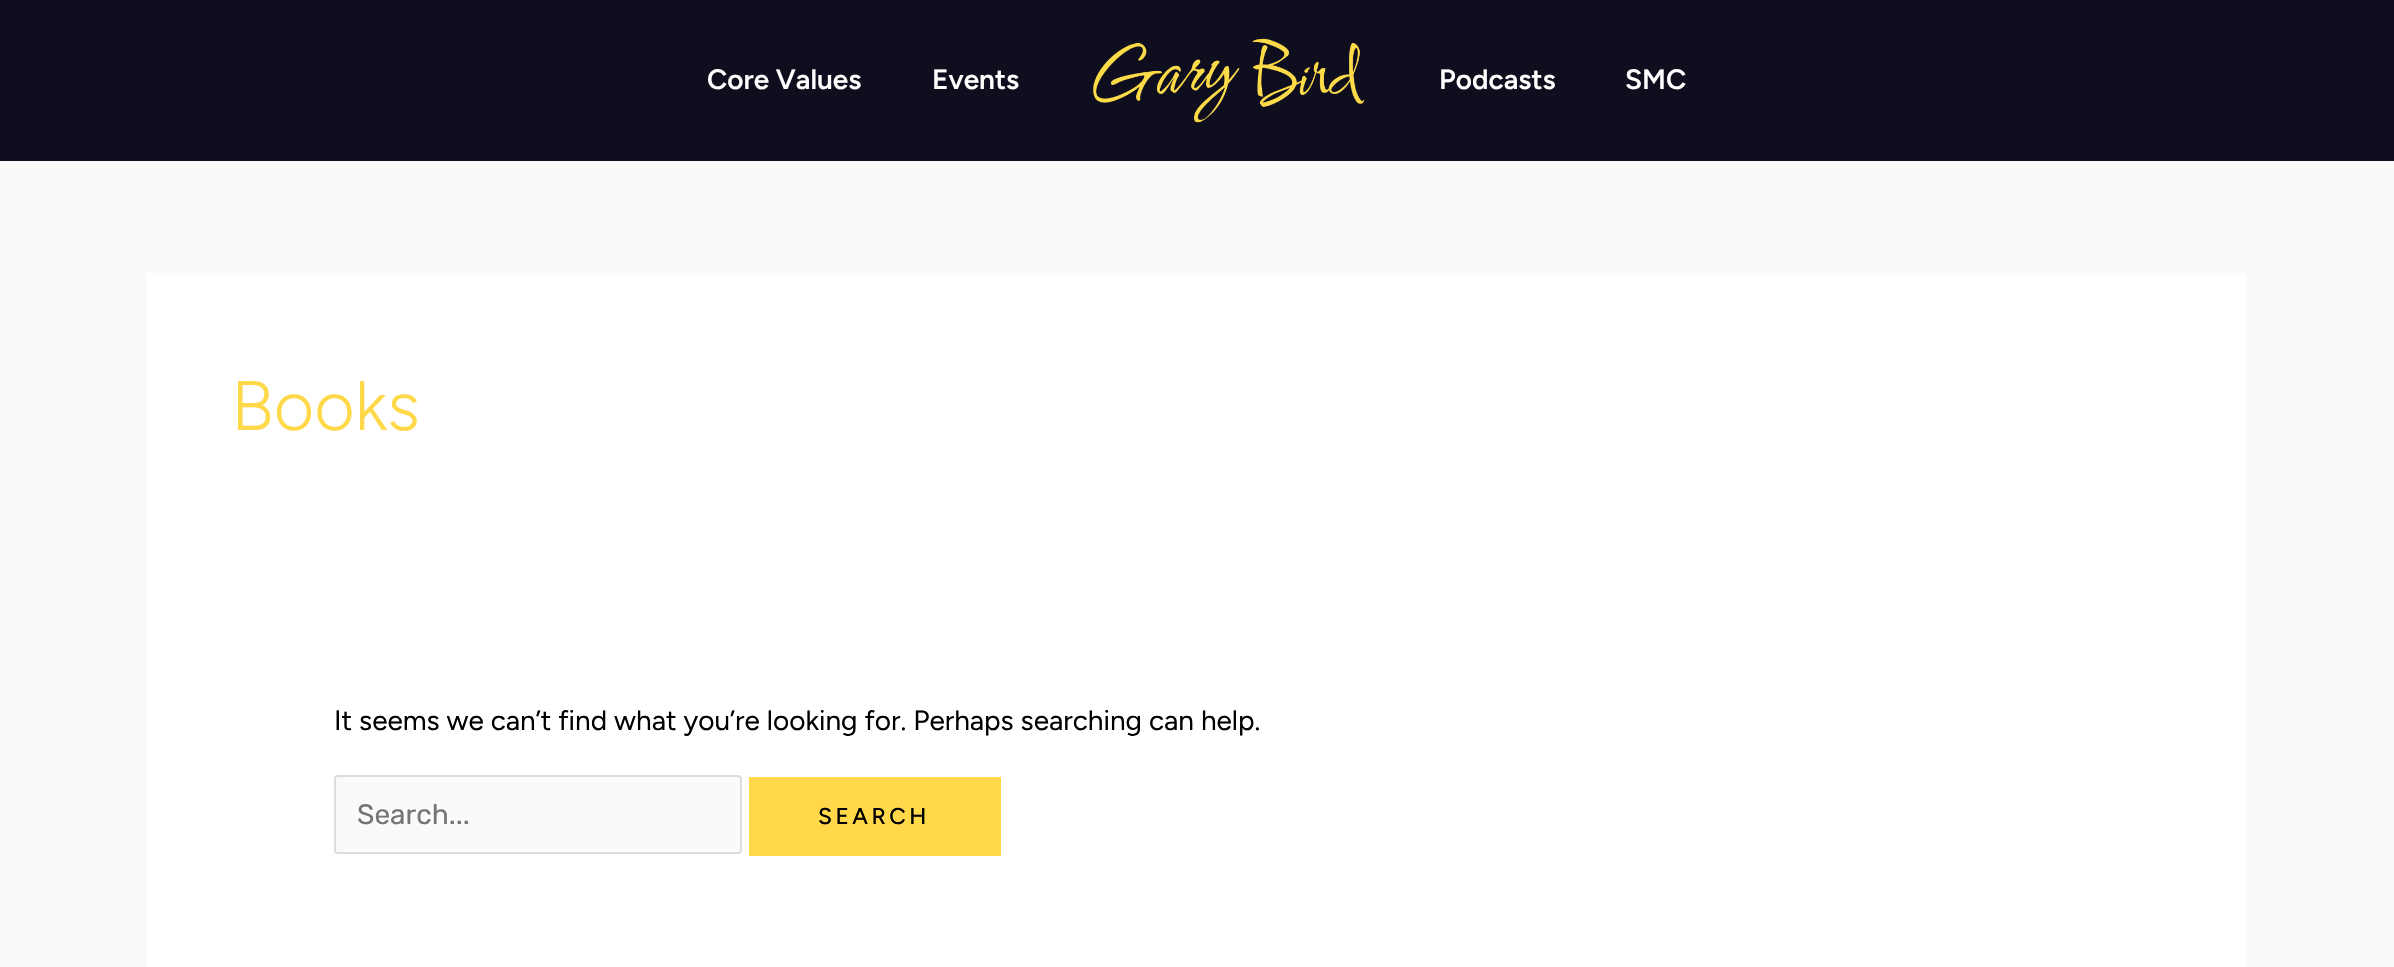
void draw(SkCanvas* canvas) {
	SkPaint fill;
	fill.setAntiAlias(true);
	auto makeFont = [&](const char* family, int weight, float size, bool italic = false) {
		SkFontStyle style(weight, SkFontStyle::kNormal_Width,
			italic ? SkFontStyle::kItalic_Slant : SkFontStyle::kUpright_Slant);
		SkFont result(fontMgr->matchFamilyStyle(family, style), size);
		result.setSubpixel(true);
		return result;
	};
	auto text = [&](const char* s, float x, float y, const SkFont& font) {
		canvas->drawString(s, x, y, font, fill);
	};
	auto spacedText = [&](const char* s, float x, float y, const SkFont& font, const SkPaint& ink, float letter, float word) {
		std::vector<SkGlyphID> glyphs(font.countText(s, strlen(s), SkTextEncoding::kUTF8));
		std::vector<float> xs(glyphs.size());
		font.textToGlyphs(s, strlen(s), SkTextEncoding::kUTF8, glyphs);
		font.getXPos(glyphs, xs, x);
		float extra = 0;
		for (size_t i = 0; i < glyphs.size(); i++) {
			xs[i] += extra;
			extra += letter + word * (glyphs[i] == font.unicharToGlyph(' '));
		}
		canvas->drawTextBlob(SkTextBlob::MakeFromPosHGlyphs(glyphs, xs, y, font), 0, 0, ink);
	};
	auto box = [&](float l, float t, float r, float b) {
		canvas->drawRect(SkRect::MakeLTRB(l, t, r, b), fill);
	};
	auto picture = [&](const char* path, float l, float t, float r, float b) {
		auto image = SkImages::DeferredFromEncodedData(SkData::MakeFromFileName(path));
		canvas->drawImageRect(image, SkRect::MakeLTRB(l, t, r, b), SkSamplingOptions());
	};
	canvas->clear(0xFFFAFAFA);
	fill.setColor(0xFF0E0E1F);
	box(0, 0, 2394, 161);
	picture("image0.png", 1093, 38, 1365, 123);
	fill.setColor(0xFFFFFFFF);
	box(147, 273, 2247, 967);
	fill.setColor(0xFFFAFAFA);
	canvas->drawRoundRect(SkRect::MakeLTRB(335, 776, 741, 853), 3, 3, fill);
	fill.setStyle(SkPaint::kStroke_Style);
	fill.setStrokeWidth(2);
	fill.setColor(0xFFDDDDDD);
	canvas->drawRoundRect(SkRect::MakeLTRB(335, 776, 741, 853), 3, 3, fill);
	fill.setStyle(SkPaint::kFill_Style);
	fill.setColor(0xFFFFD94A);
	box(749, 777, 1001, 856);
	auto font1 = makeFont("Figtree", 600, 28);
	fill.setColor(0xFFFFFFFF);
	text("Core Values", 707, 89, font1);
	text("Events", 932, 89, font1);
	text("Podcasts", 1439, 89, font1);
	text("SMC", 1625, 89, font1);
	auto font2 = makeFont("Figtree", 300, 70);
	fill.setColor(0xFFFFD94A);
	text("Books", 231, 430, font2);
	auto font3 = makeFont("Figtree", 400, 28);
	fill.setColor(0xFF000000);
	text("It seems we can’t find what you’re looking for. Perhaps searching can help.", 334, 730, font3);
	auto font4 = makeFont("Rubik", 300, 28);
	fill.setColor(0xFF757575);
	text("Search...", 357, 824, font4);
	auto font5 = makeFont("Figtree", 500, 22.75f);
	fill.setColor(0xFF000000);
	spacedText("SEARCH", 818, 824, font5, fill, 3.5f, 0);
}
